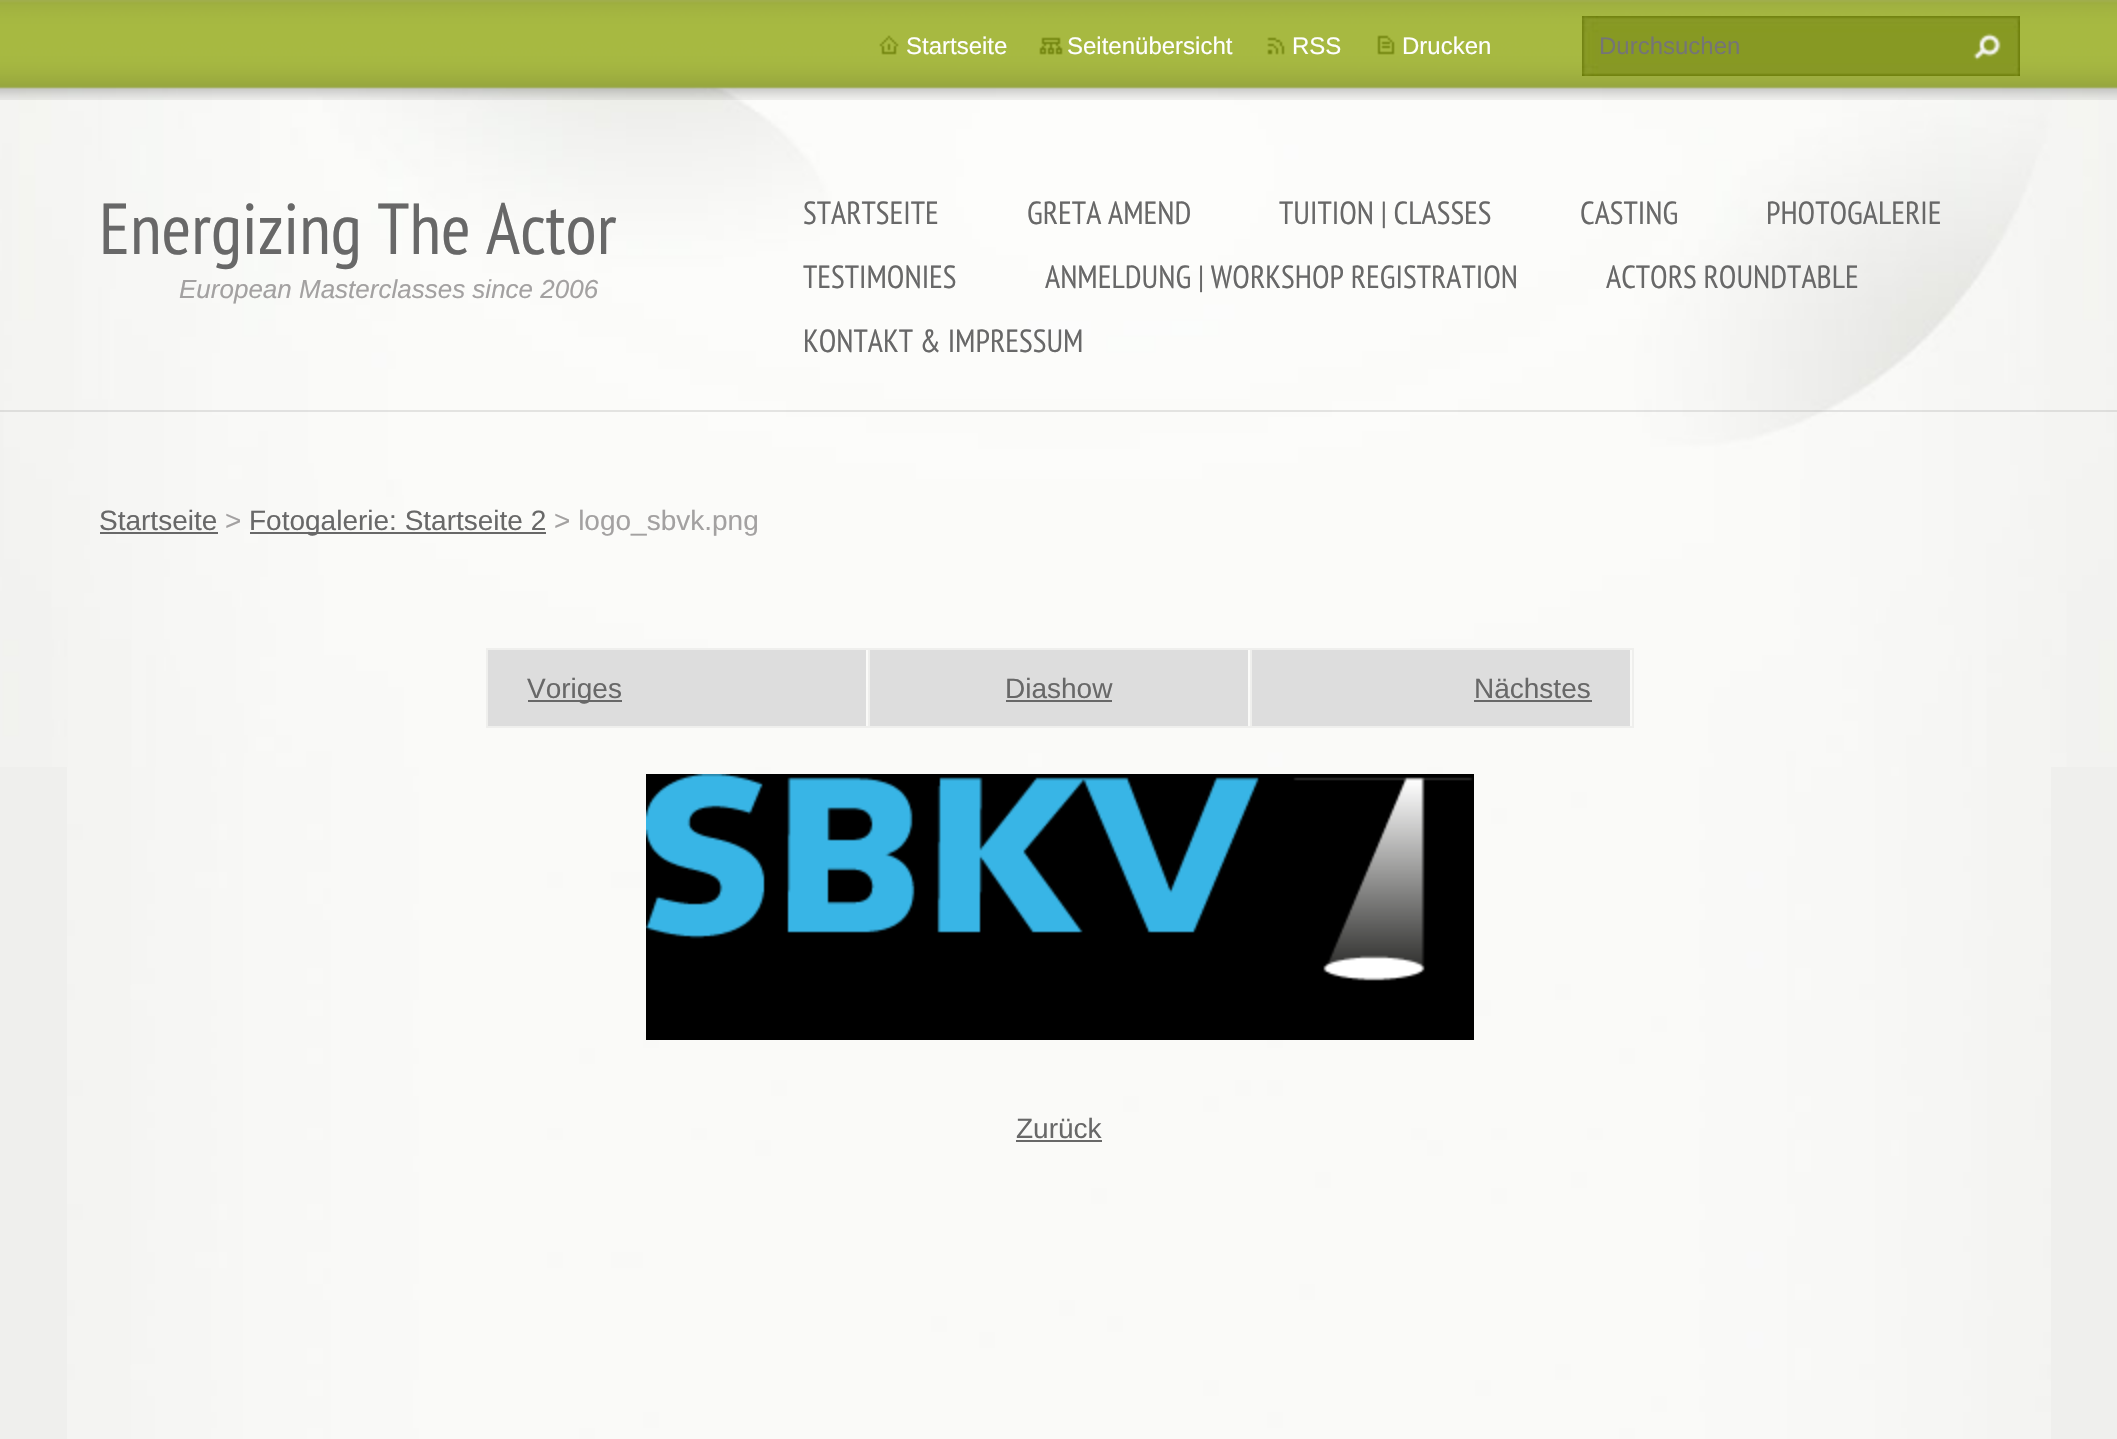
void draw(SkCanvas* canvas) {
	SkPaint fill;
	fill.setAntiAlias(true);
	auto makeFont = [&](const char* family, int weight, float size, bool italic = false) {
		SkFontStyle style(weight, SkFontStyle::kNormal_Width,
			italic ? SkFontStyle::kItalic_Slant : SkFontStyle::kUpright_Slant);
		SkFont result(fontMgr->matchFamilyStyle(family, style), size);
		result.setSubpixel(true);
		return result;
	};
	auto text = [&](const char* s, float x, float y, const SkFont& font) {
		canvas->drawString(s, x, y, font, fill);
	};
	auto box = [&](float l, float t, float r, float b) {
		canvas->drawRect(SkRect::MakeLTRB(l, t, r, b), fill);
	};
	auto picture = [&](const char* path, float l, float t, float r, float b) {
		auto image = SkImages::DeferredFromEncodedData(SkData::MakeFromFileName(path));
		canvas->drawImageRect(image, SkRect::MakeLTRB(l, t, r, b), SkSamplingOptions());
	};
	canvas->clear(0xFFEFEFED);
	picture("image0.png", 67, 767, 2051, 1439);
	picture("image1.png", 0, 87, 2117, 767);
	fill.setColor(0x429E9E9E);
	box(0, 410, 2117, 412);
	picture("image2.png", 0, 0, 2117, 100);
	picture("image3.png", 879, 35, 899, 55);
	picture("image4.png", 1039, 37, 1063, 55);
	picture("image5.png", 1267, 37, 1285, 55);
	picture("image6.png", 1377, 35, 1395, 55);
	picture("image7.png", 1582, 16, 2020, 76);
	picture("image8.png", 1973, 33, 2001, 61);
	fill.setColor(0xFF686868);
	box(100, 532, 218, 534);
	box(250, 532, 546, 534);
	fill.setColor(0xFFEFEFED);
	box(486, 648, 1634, 650);
	box(486, 648, 488, 728);
	fill.setColor(0xFFDDDDDD);
	box(488, 650, 866, 726);
	fill.setColor(0xFFEFEFED);
	box(1632, 648, 1634, 728);
	box(1250, 726, 1634, 728);
	box(1250, 648, 1252, 728);
	box(868, 726, 1252, 728);
	box(868, 648, 870, 728);
	box(486, 726, 870, 728);
	fill.setColor(0xFF686868);
	box(528, 700, 622, 702);
	fill.setColor(0xFFDDDDDD);
	box(870, 650, 1248, 726);
	fill.setColor(0xFF686868);
	box(1006, 700, 1112, 702);
	fill.setColor(0xFFDDDDDD);
	box(1252, 650, 1630, 726);
	fill.setColor(0xFF686868);
	box(1474, 700, 1592, 702);
	picture("image9.png", 646, 774, 1474, 1040);
	box(1016, 1140, 1102, 1142);
	auto font1 = makeFont("Liberation Sans", 400, 24);
	fill.setColor(0xFFFFFFFF);
	text("Startseite", 906, 54, font1);
	text("Seitenübersicht", 1067, 54, font1);
	text("RSS", 1292, 54, font1);
	text("Drucken", 1402, 54, font1);
	fill.setColor(0xFF757575);
	text("Durchsuchen", 1599, 54, font1);
	auto font2 = makeFont("PT Sans Narrow", 400, 72);
	fill.setColor(0xFF686868);
	text("Energizing The Actor", 99, 254, font2);
	auto font3 = makeFont("Liberation Sans", 400, 26, true);
	fill.setColor(0xFFA3A1A1);
	text("European Masterclasses since 2006", 179, 298, font3);
	auto font4 = makeFont("PT Sans Narrow", 400, 32);
	fill.setColor(0xFF686868);
	text("STARTSEITE", 803, 224, font4);
	text("GRETA AMEND", 1027, 224, font4);
	text("TUITION | CLASSES", 1279, 224, font4);
	text("CASTING", 1580, 224, font4);
	text("PHOTOGALERIE", 1766, 224, font4);
	text("TESTIMONIES", 803, 288, font4);
	text("ANMELDUNG | WORKSHOP REGISTRATION", 1045, 288, font4);
	text("ACTORS ROUNDTABLE", 1606, 288, font4);
	text("KONTAKT & IMPRESSUM", 803, 352, font4);
	auto font5 = makeFont("Liberation Sans", 400, 28);
	text("Startseite", 99, 530, font5);
	fill.setColor(0xFFA3A1A1);
	text(">", 225, 530, font5);
	fill.setColor(0xFF686868);
	text("Fotogalerie: Startseite 2", 249, 530, font5);
	fill.setColor(0xFFA3A1A1);
	text("> logo_sbvk.png", 554, 530, font5);
	fill.setColor(0xFF686868);
	text("Voriges", 527, 698, font5);
	text("Diashow", 1005, 698, font5);
	text("Nächstes", 1474, 698, font5);
	text("Zurück", 1016, 1138, font5);
}
